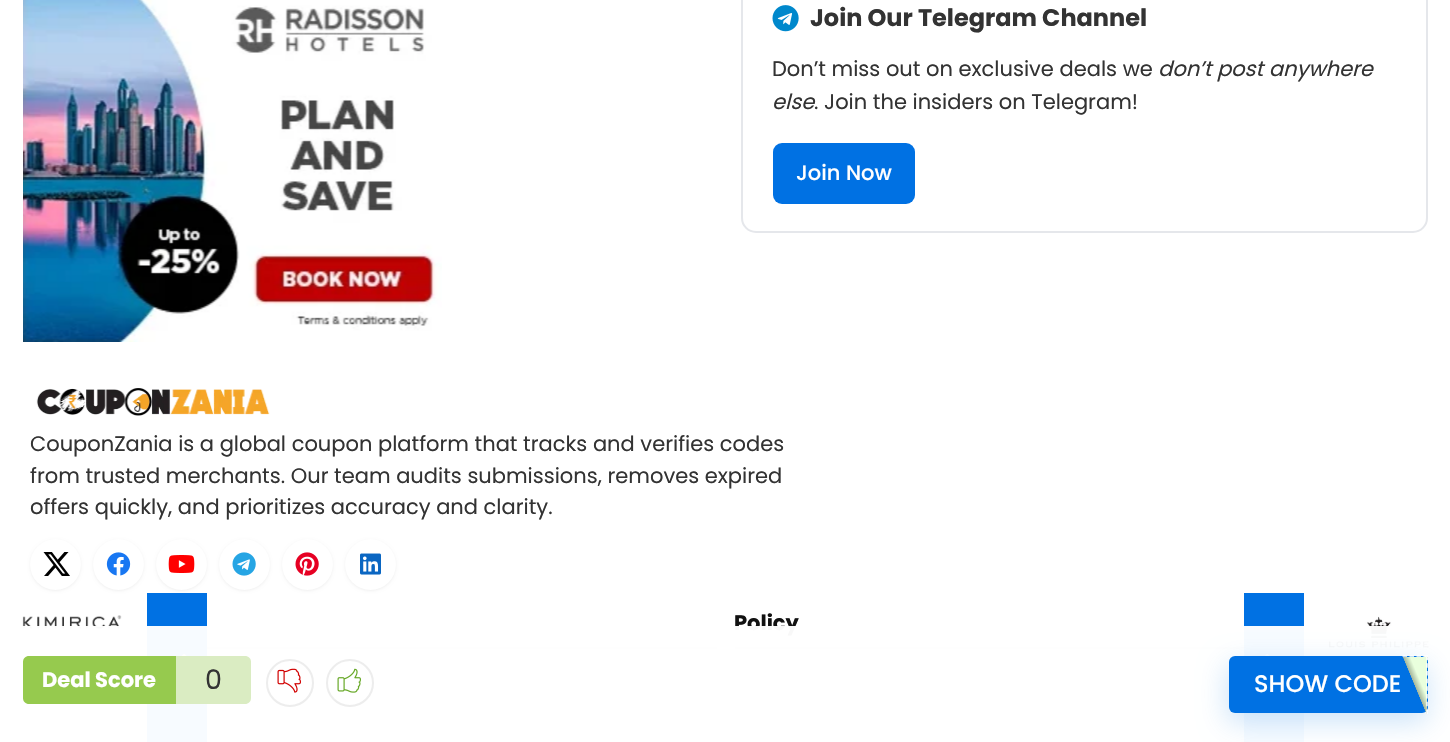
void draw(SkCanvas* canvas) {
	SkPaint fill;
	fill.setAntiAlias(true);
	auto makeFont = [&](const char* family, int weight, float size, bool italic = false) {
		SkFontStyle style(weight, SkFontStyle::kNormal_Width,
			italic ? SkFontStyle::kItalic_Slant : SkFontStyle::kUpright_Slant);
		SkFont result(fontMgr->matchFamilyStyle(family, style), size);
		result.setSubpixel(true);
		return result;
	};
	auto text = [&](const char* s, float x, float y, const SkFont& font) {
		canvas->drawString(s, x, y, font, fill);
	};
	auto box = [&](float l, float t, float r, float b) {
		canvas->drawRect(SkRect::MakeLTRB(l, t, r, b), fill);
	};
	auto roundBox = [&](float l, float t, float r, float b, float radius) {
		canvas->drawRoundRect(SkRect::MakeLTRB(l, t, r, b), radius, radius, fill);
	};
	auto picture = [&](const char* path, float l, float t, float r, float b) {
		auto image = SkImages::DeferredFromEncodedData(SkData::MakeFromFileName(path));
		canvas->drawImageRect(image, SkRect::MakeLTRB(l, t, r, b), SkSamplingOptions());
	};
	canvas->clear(0xFFFFFFFF);
	picture("image0.png", 23, 0, 442, 342);
	fill.setStyle(SkPaint::kStroke_Style);
	fill.setStrokeWidth(2);
	fill.setColor(0xFFE5E7EB);
	canvas->drawRoundRect(SkRect::MakeLTRB(742, -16, 1427, 232), 14, 14, fill);
	picture("image1.png", 772, 5, 799, 32);
	fill.setStyle(SkPaint::kFill_Style);
	fill.setColor(0xFF0071E3);
	roundBox(773, 143, 915, 204, 9);
	fill.setColor(0x0F000000);
	fill.setMaskFilter(SkMaskFilter::MakeBlur(kNormal_SkBlurStyle, 1.5f));
	canvas->drawRoundRect(SkRect::MakeLTRB(93, 540, 144, 591), 25.5f, 25.5f, fill);
	fill.setMaskFilter(nullptr);
	fill.setMaskFilter(SkMaskFilter::MakeBlur(kNormal_SkBlurStyle, 1.5f));
	canvas->drawRoundRect(SkRect::MakeLTRB(156, 540, 207, 591), 25.5f, 25.5f, fill);
	fill.setMaskFilter(nullptr);
	fill.setColor(0xFF0071E3);
	box(147, 593, 207, 742);
	picture("image2.png", 22, 615, 122, 630);
	picture("image3.png", 181, 654, 187, 656);
	box(1244, 593, 1304, 742);
	picture("image4.png", 1328, 616, 1429, 648);
	picture("image5.png", 1264, 654, 1270, 656);
	picture("image8.png", 36, 388, 270, 416);
	fill.setColor(0x0F000000);
	fill.setMaskFilter(SkMaskFilter::MakeBlur(kNormal_SkBlurStyle, 1.5f));
	canvas->drawRoundRect(SkRect::MakeLTRB(30, 540, 81, 591), 25.5f, 25.5f, fill);
	fill.setMaskFilter(nullptr);
	fill.setColor(0xFFFFFFFF);
	canvas->drawCircle(55.5f, 564.5f, 25.5f, fill);
	picture("image9.png", 43, 552, 70, 576);
	canvas->drawCircle(118.5f, 564.5f, 25.5f, fill);
	picture("image10.png", 106, 552, 131, 576);
	canvas->drawCircle(181.5f, 564.5f, 25.5f, fill);
	picture("image11.png", 168, 555, 195, 573);
	fill.setColor(0x0F000000);
	fill.setMaskFilter(SkMaskFilter::MakeBlur(kNormal_SkBlurStyle, 1.5f));
	canvas->drawRoundRect(SkRect::MakeLTRB(219, 540, 270, 591), 25.5f, 25.5f, fill);
	fill.setMaskFilter(nullptr);
	fill.setColor(0xFFFFFFFF);
	canvas->drawCircle(244.5f, 564.5f, 25.5f, fill);
	picture("image12.png", 232, 552, 256, 576);
	fill.setColor(0x0F000000);
	fill.setMaskFilter(SkMaskFilter::MakeBlur(kNormal_SkBlurStyle, 1.5f));
	canvas->drawRoundRect(SkRect::MakeLTRB(282, 540, 333, 591), 25.5f, 25.5f, fill);
	fill.setMaskFilter(nullptr);
	fill.setColor(0xFFFFFFFF);
	canvas->drawCircle(307.5f, 564.5f, 25.5f, fill);
	picture("image13.png", 295, 552, 319, 576);
	fill.setColor(0x0F000000);
	fill.setMaskFilter(SkMaskFilter::MakeBlur(kNormal_SkBlurStyle, 1.5f));
	canvas->drawRoundRect(SkRect::MakeLTRB(345, 540, 396, 591), 25.5f, 25.5f, fill);
	fill.setMaskFilter(nullptr);
	fill.setColor(0xFFFFFFFF);
	canvas->drawCircle(370.5f, 564.5f, 25.5f, fill);
	picture("image14.png", 360, 553, 381, 575);
	fill.setColor(0xFFDCDCDC);
	box(735, 647, 1244, 649);
	box(207, 647, 717, 649);
	auto font1 = makeFont("Poppins", 700, 24);
	fill.setColor(0xFF333333);
	text("Join Our Telegram Channel", 810, 26, font1);
	auto font2 = makeFont("Poppins", 400, 21);
	text("Don’t miss out on exclusive deals we", 772, 76, font2);
	auto font3 = makeFont("Poppins", 400, 21, true);
	text("don’t post anywhere", 1158, 76, font3);
	text("else", 772, 109, font3);
	text(". Join the insiders on Telegram!", 814, 109, font2);
	auto font4 = makeFont("Poppins", 500, 21);
	fill.setColor(0xFFFFFFFF);
	text("Join Now", 796, 180, font4);
	fill.setColor(0xFF333333);
	text("CouponZania is a global coupon platform that tracks and verifies codes", 30, 451, font2);
	text("from trusted merchants. Our team audits submissions, removes expired", 30, 483, font2);
	text("offers quickly, and prioritizes accuracy and clarity.", 30, 514, font2);
	auto font5 = makeFont("Poppins", 700, 21);
	fill.setColor(0xFF111111);
	text("Policy", 734, 630, font5);
	fill.setColor(0xF7FFFFFF);
	box(22, 626, 1429, 742);
	fill.setColor(0x330071E3);
	fill.setMaskFilter(SkMaskFilter::MakeBlur(kNormal_SkBlurStyle, 14));
	canvas->drawRoundRect(SkRect::MakeLTRB(1227, 665, 1427, 722), 6, 6, fill);
	fill.setMaskFilter(nullptr);
	fill.setColor(0xFF0071E3);
	roundBox(1229, 656, 1428, 713, 6);
	{
		const SkColor colors[] = {0x00000000, 0x00A6B79D, 0xFFA6B79D, 0xFFE9FFDD};
		const float stops[] = {0, 0.5f, 0.51f, 0.66f};
		const SkPoint ends[] = {{1394, 637}, {1435, 620}};
		fill.setShader(SkGradientShader::MakeLinear(ends, colors, stops, 4, SkTileMode::kClamp));
		fill.setAlpha(255);
	}
	box(1426, 656, 1427, 657);
	fill.setStyle(SkPaint::kStroke_Style);
	fill.setStrokeWidth(1.5f);
	fill.setShader(nullptr);
	fill.setColor(0xFFFFFFFF);
	fill.setPathEffect(SkDashPathEffect::Make({{4.5f, 2.5f}}, 0));
	canvas->drawPath(SkPathBuilder().moveTo(1402.5f, 656).lineTo(1428, 656).detach(), fill);
	fill.setPathEffect(nullptr);
	fill.setStyle(SkPaint::kFill_Style);
	{
		const SkColor colors[] = {0x00000000, 0x00A6B79D, 0xFFA6B79D, 0xFFE9FFDD};
		const float stops[] = {0, 0.5f, 0.51f, 0.66f};
		const SkPoint ends[] = {{1418, 694}, {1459, 677}};
		fill.setShader(SkGradientShader::MakeLinear(ends, colors, stops, 4, SkTileMode::kClamp));
		fill.setAlpha(255);
	}
	box(1427, 657, 1428, 659);
	{
		const SkColor colors[] = {0x00000000, 0x00A6B79D, 0xFFA6B79D, 0xFFE9FFDD};
		const float stops[] = {0, 0.5f, 0.51f, 0.66f};
		const SkPoint ends[] = {{1394, 694}, {1435, 677}};
		fill.setShader(SkGradientShader::MakeLinear(ends, colors, stops, 4, SkTileMode::kClamp));
		fill.setAlpha(255);
	}
	box(1403, 657, 1427, 714);
	fill.setStyle(SkPaint::kStroke_Style);
	fill.setShader(nullptr);
	fill.setColor(0xFFFFFFFF);
	fill.setPathEffect(SkDashPathEffect::Make({{4.5f, 3.21f}}, 0));
	canvas->drawPath(SkPathBuilder().moveTo(1427, 655.5f).lineTo(1427, 714).detach(), fill);
	fill.setPathEffect(nullptr);
	auto font6 = makeFont("Poppins", 500, 24);
	fill.setStyle(SkPaint::kFill_Style);
	text("SHOW CODE", 1254, 692, font6);
	fill.setStyle(SkPaint::kStroke_Style);
	fill.setStrokeWidth(2);
	fill.setColor(0xFFEDEDED);
	canvas->drawCircle(350, 683, 23, fill);
	picture("image7.png", 337, 668, 361, 693);
	canvas->drawCircle(290, 683, 23, fill);
	picture("image6.png", 277, 668, 301, 693);
	fill.setStyle(SkPaint::kFill_Style);
	fill.setColor(0xFFDAECC2);
	canvas->drawPath(SkPathBuilder().moveTo(176, 656).lineTo(245, 656).cubicTo(248.5f, 656, 251, 658.5f, 251, 662).lineTo(251, 698).cubicTo(251, 701.5f, 248.5f, 704, 245, 704).lineTo(176, 704).close().detach(), fill);
	auto font7 = makeFont("Poppins", 400, 27);
	fill.setColor(0xFF333333);
	text("0", 205, 689, font7);
	fill.setColor(0xFF96CA4E);
	canvas->drawPath(SkPathBuilder().moveTo(29, 656).lineTo(176, 656).lineTo(176, 704).lineTo(29, 704).cubicTo(25.5f, 704, 23, 701.5f, 23, 698).lineTo(23, 662).cubicTo(23, 658.5f, 25.5f, 656, 29, 656).close().detach(), fill);
	fill.setColor(0xFFFFFFFF);
	text("Deal Score", 42, 687, font5);
}
